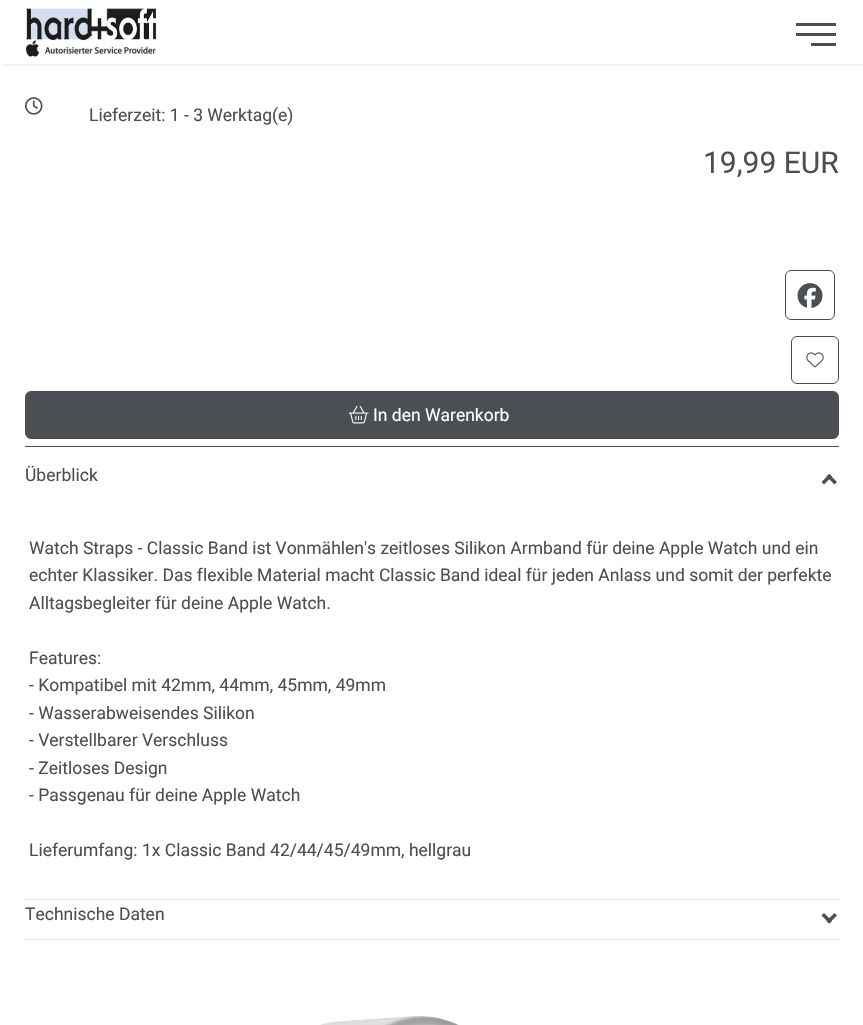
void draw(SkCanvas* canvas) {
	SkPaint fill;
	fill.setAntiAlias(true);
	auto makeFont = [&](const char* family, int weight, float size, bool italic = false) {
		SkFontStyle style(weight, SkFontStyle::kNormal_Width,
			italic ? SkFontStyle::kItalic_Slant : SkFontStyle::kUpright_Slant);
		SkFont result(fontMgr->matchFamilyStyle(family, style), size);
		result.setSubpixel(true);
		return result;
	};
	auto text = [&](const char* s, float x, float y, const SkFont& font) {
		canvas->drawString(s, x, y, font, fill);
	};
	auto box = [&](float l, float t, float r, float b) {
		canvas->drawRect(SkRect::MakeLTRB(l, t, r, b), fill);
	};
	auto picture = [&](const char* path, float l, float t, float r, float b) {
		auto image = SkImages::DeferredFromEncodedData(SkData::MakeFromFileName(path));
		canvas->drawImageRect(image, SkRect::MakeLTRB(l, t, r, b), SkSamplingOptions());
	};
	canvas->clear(0xFFFFFFFF);
	fill.setColor(0x26000000);
	fill.setMaskFilter(SkMaskFilter::MakeBlur(kNormal_SkBlurStyle, 2));
	canvas->drawRect(SkRect::MakeLTRB(3, 0, 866, 64), fill);
	fill.setMaskFilter(nullptr);
	fill.setColor(0xFFFFFFFF);
	box(0, 0, 863, 64);
	picture("image0.png", 26, 8, 157, 57);
	fill.setColor(0xFF4B4E53);
	box(796, 23, 836, 26);
	box(796, 33, 836, 36);
	box(811, 43, 836, 46);
	picture("image1.png", 25, 97, 43, 115);
	fill.setStyle(SkPaint::kStroke_Style);
	fill.setStrokeWidth(1);
	canvas->drawRoundRect(SkRect::MakeLTRB(785.5f, 270.5f, 834.5f, 319.5f), 5.5f, 5.5f, fill);
	picture("image2.png", 797, 283, 823, 308);
	canvas->drawRoundRect(SkRect::MakeLTRB(791.5f, 336.5f, 838.5f, 383.5f), 5.5f, 5.5f, fill);
	picture("image3.png", 806, 352, 824, 368);
	fill.setStyle(SkPaint::kFill_Style);
	canvas->drawRoundRect(SkRect::MakeLTRB(25.5f, 391.5f, 838.5f, 438.5f), 5.5f, 5.5f, fill);
	fill.setStyle(SkPaint::kStroke_Style);
	canvas->drawRoundRect(SkRect::MakeLTRB(25.5f, 391.5f, 838.5f, 438.5f), 5.5f, 5.5f, fill);
	picture("image4.png", 348, 406, 369, 424);
	fill.setStyle(SkPaint::kFill_Style);
	box(25, 446, 839, 447);
	fill.setColor(0xFFE3E3E3);
	box(25, 899, 839, 900);
	fill.setColor(0xFF4B4E53);
	canvas->drawPath(SkPathBuilder().moveTo(826.5f, 476.5f).lineTo(829, 474).lineTo(837, 482).lineTo(834.5f, 484.5f).close().detach(), fill);
	canvas->drawPath(SkPathBuilder().moveTo(829.5f, 474).lineTo(832, 476.5f).lineTo(824, 484.5f).lineTo(821.5f, 482).close().detach(), fill);
	fill.setColor(0xFFE3E3E3);
	box(25, 939, 839, 940);
	fill.setColor(0xFF4B4E53);
	canvas->drawPath(SkPathBuilder().moveTo(821.5f, 915.5f).lineTo(824, 913).lineTo(832, 921).lineTo(829.5f, 923.5f).close().detach(), fill);
	canvas->drawPath(SkPathBuilder().moveTo(834.5f, 913).lineTo(837, 915.5f).lineTo(829, 923.5f).lineTo(826.5f, 921).close().detach(), fill);
	picture("image5.png", 320, 1016, 459, 1025);
	auto font1 = makeFont("Roboto", 400, 17.5f);
	text("Lieferzeit: 1 - 3 Werktag(e)", 89, 121, font1);
	auto font2 = makeFont("Roboto", 400, 30);
	text("19,99 EUR", 703, 173, font2);
	fill.setColor(0xFFFFFFFF);
	text("In den Warenkorb", 373, 421, font1);
	fill.setColor(0xFF4B4E53);
	text("Überblick", 25, 481, font1);
	text("Watch Straps - Classic Band ist Vonmählen's zeitloses Silikon Armband für deine Apple Watch und ein", 29, 554, font1);
	text("echter Klassiker. Das flexible Material macht Classic Band ideal für jeden Anlass und somit der perfekte", 29, 581, font1);
	text("Alltagsbegleiter für deine Apple Watch.", 29, 609, font1);
	text("Features:", 29, 664, font1);
	text("- Kompatibel mit 42mm, 44mm, 45mm, 49mm", 29, 691, font1);
	text("- Wasserabweisendes Silikon", 29, 719, font1);
	text("- Verstellbarer Verschluss", 29, 746, font1);
	text("- Zeitloses Design", 29, 774, font1);
	text("- Passgenau für deine Apple Watch", 29, 801, font1);
	text("Lieferumfang: 1x Classic Band 42/44/45/49mm, hellgrau", 29, 856, font1);
	text("Technische Daten", 25, 920, font1);
}
